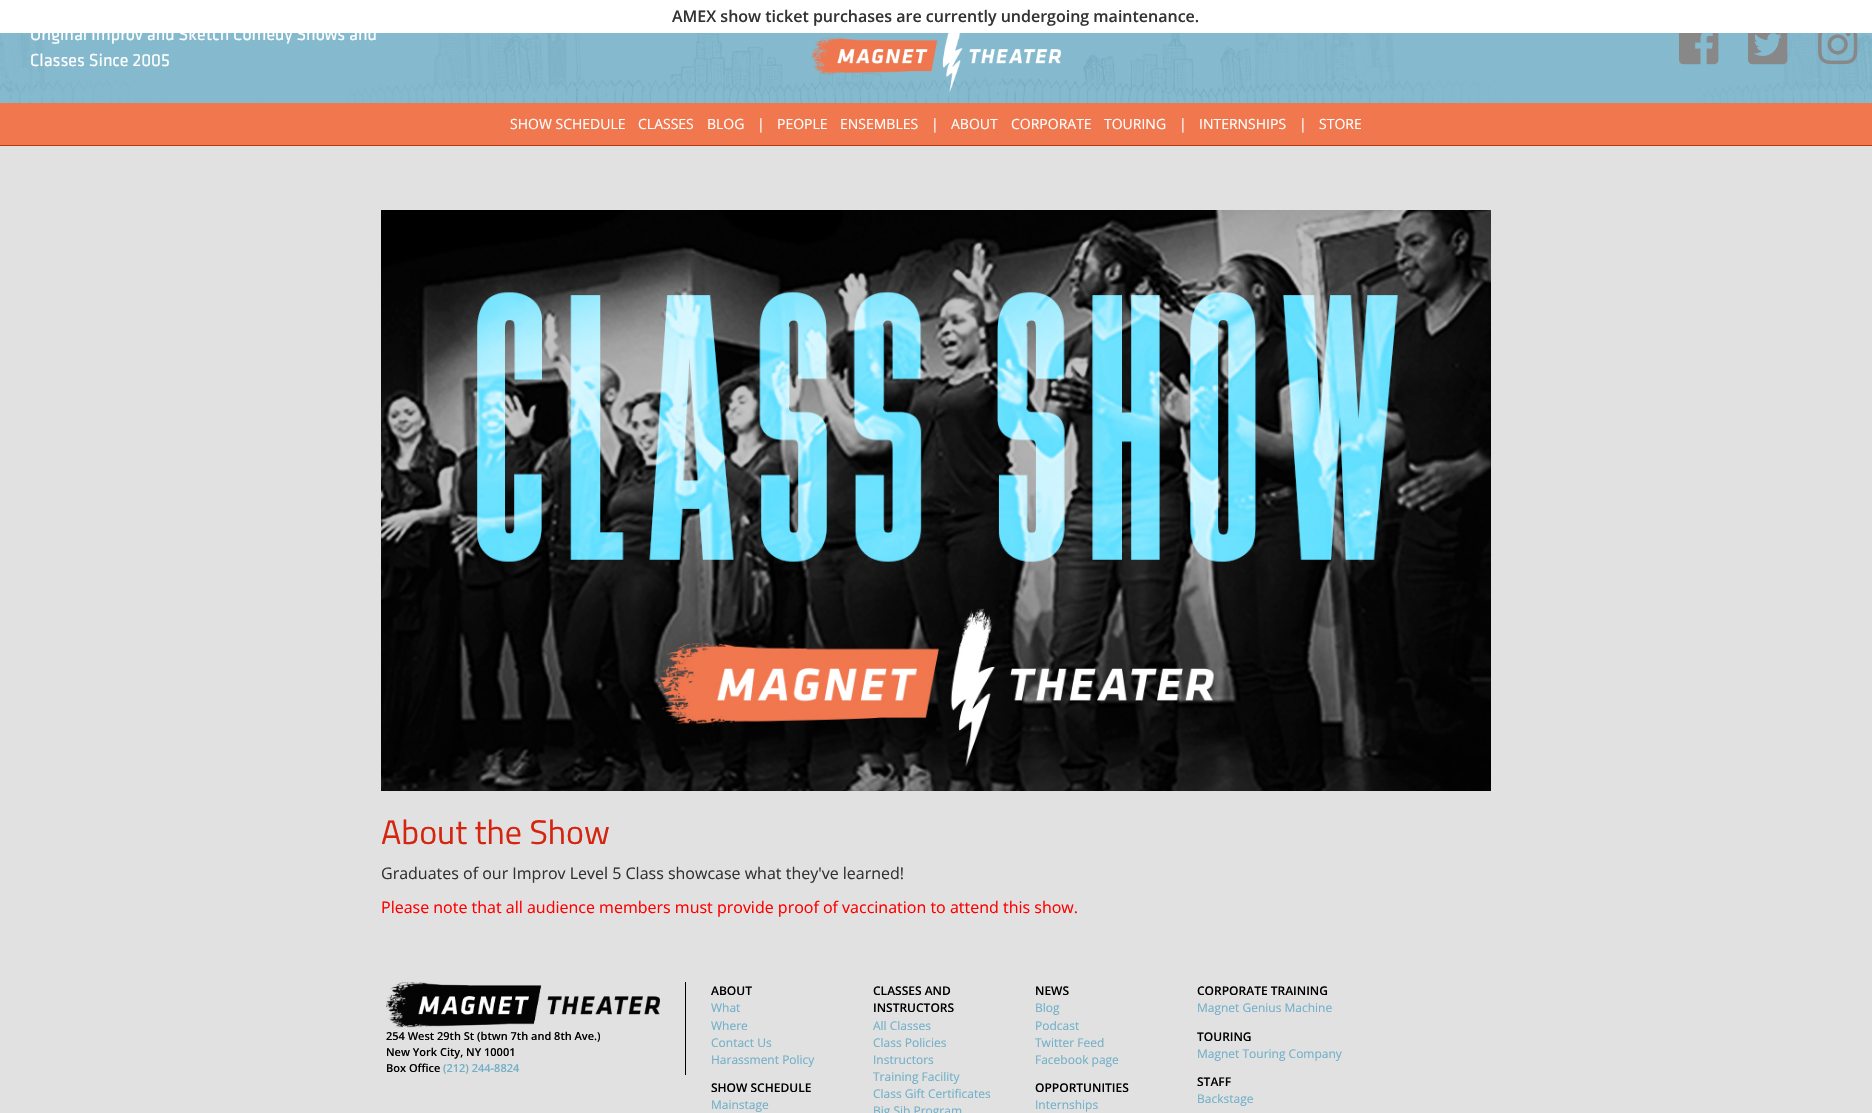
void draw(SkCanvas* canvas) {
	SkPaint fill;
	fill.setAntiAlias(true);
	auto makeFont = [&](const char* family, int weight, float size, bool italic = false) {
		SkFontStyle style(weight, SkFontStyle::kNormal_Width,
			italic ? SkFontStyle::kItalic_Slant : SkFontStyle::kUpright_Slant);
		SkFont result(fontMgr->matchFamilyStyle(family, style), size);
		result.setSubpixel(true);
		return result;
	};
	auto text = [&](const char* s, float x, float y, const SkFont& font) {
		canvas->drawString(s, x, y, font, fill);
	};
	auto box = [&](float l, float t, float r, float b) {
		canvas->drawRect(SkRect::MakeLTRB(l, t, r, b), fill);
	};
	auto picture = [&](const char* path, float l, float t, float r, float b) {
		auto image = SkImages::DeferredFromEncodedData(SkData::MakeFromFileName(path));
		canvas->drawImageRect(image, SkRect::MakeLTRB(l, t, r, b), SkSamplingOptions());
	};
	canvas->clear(0xFFE1E1E1);
	fill.setColor(0xFFFFFFFF);
	box(0, 0, 1872, 33);
	picture("image0.png", 0, 33, 1872, 103);
	picture("image1.png", 811, 33, 1061, 93);
	picture("image2.png", 1679, 33, 1719, 65);
	picture("image3.png", 1748, 33, 1788, 65);
	picture("image4.png", 1818, 33, 1858, 65);
	fill.setColor(0xFFF1774F);
	box(0, 103, 1872, 145);
	fill.setColor(0xFFB3380F);
	box(0, 145, 1872, 146);
	picture("image5.png", 381, 210, 1491, 791);
	fill.setColor(0xFF000000);
	box(685, 982, 686, 1075);
	picture("image6.png", 386, 982, 660, 1028);
	auto font1 = makeFont("Open Sans", 600, 16);
	fill.setColor(0xFF333333);
	text("AMEX show ticket purchases are currently undergoing maintenance.", 672, 22, font1);
	auto font2 = makeFont("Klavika", 400, 18);
	fill.setColor(0xFFFFFFFF);
	text("Original Improv and Sketch Comedy Shows and", 30, 40, font2);
	text("Classes Since 2005", 30, 66, font2);
	auto font3 = makeFont("Open Sans", 400, 14);
	text("SHOW SCHEDULE", 510, 129, font3);
	text("CLASSES", 638, 129, font3);
	text("BLOG", 707, 129, font3);
	text("|", 757, 129, font3);
	text("PEOPLE", 777, 129, font3);
	text("ENSEMBLES", 840, 129, font3);
	text("|", 931, 129, font3);
	text("ABOUT", 951, 129, font3);
	text("CORPORATE", 1011, 129, font3);
	text("TOURING", 1104, 129, font3);
	text("|", 1179, 129, font3);
	text("INTERNSHIPS", 1199, 129, font3);
	text("|", 1299, 129, font3);
	text("STORE", 1319, 129, font3);
	auto font4 = makeFont("Titillium Web", 400, 34);
	fill.setColor(0xFFD5240F);
	text("About the Show", 381, 844, font4);
	auto font5 = makeFont("Open Sans", 400, 16);
	fill.setColor(0xFF333333);
	text("Graduates of our Improv Level 5 Class showcase what they've learned!", 381, 879, font5);
	fill.setColor(0xFFFF0000);
	text("Please note that all audience members must provide proof of vaccination to attend this show.", 381, 913, font5);
	auto font6 = makeFont("Open Sans", 600, 12);
	fill.setColor(0xFF000000);
	text("ABOUT", 711, 995, font6);
	auto font7 = makeFont("Open Sans", 400, 12);
	fill.setColor(0xFF72B0C8);
	text("What", 711, 1012, font7);
	text("Where", 711, 1030, font7);
	text("Contact Us", 711, 1047, font7);
	text("Harassment Policy", 711, 1064, font7);
	fill.setColor(0xFF000000);
	text("SHOW SCHEDULE", 711, 1092, font6);
	fill.setColor(0xFF72B0C8);
	text("Mainstage", 711, 1109, font7);
	fill.setColor(0xFF000000);
	text("CLASSES AND", 873, 995, font6);
	text("INSTRUCTORS", 873, 1012, font6);
	fill.setColor(0xFF72B0C8);
	text("All Classes", 873, 1030, font7);
	text("Class Policies", 873, 1047, font7);
	text("Instructors", 873, 1064, font7);
	text("Training Facility", 873, 1081, font7);
	text("Class Gift Certificates", 873, 1098, font7);
	text("Big Sib Program", 873, 1115, font7);
	fill.setColor(0xFF000000);
	text("NEWS", 1035, 995, font6);
	fill.setColor(0xFF72B0C8);
	text("Blog", 1035, 1012, font7);
	text("Podcast", 1035, 1030, font7);
	text("Twitter Feed", 1035, 1047, font7);
	text("Facebook page", 1035, 1064, font7);
	fill.setColor(0xFF000000);
	text("OPPORTUNITIES", 1035, 1092, font6);
	fill.setColor(0xFF72B0C8);
	text("Internships", 1035, 1109, font7);
	fill.setColor(0xFF000000);
	text("CORPORATE TRAINING", 1197, 995, font6);
	fill.setColor(0xFF72B0C8);
	text("Magnet Genius Machine", 1197, 1012, font7);
	auto font8 = makeFont("Open Sans", 600, 11);
	fill.setColor(0xFF000000);
	text("254 West 29th St (btwn 7th and 8th Ave.)", 386, 1040, font8);
	text("New York City, NY 10001", 386, 1056, font8);
	text("Box Office", 386, 1072, font8);
	fill.setColor(0xFF72B0C8);
	text("(212) 244-8824", 443, 1072, font8);
	fill.setColor(0xFF000000);
	text("TOURING", 1197, 1041, font6);
	fill.setColor(0xFF72B0C8);
	text("Magnet Touring Company", 1197, 1058, font7);
	fill.setColor(0xFF000000);
	text("STAFF", 1197, 1086, font6);
	fill.setColor(0xFF72B0C8);
	text("Backstage", 1197, 1103, font7);
}
